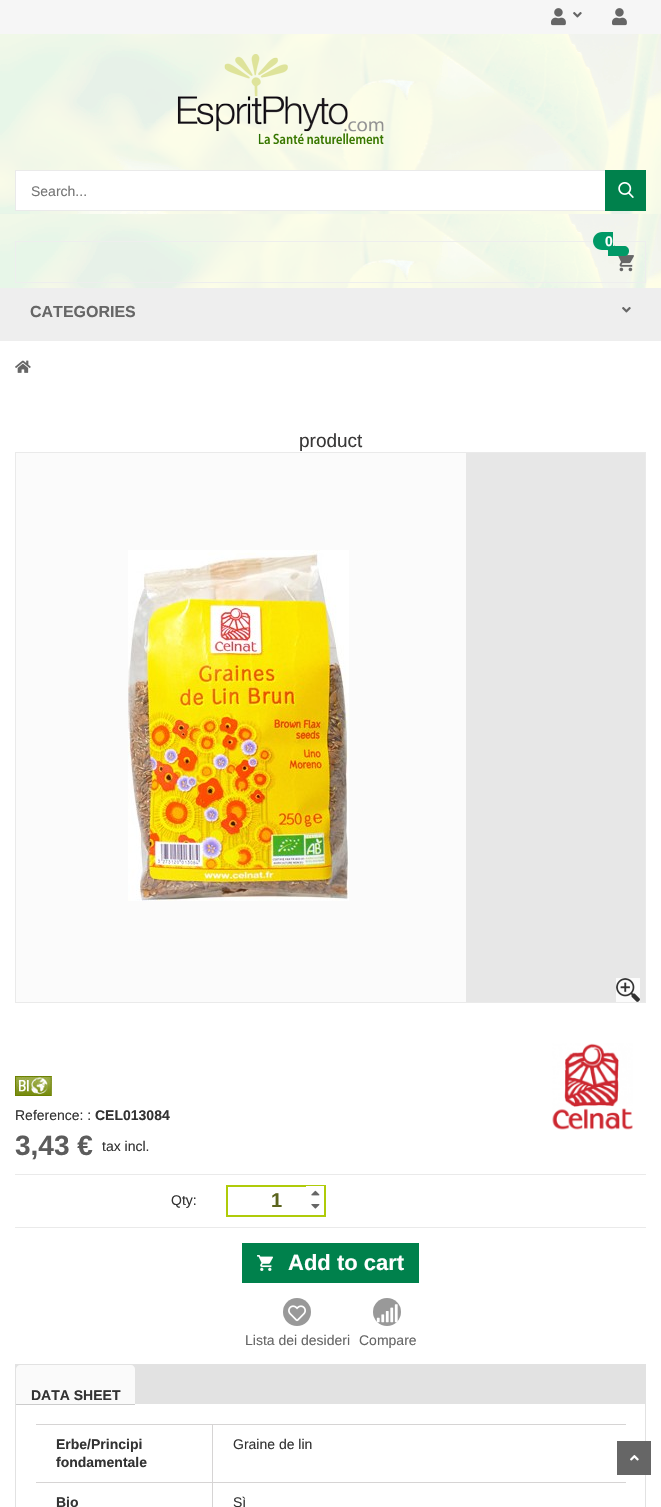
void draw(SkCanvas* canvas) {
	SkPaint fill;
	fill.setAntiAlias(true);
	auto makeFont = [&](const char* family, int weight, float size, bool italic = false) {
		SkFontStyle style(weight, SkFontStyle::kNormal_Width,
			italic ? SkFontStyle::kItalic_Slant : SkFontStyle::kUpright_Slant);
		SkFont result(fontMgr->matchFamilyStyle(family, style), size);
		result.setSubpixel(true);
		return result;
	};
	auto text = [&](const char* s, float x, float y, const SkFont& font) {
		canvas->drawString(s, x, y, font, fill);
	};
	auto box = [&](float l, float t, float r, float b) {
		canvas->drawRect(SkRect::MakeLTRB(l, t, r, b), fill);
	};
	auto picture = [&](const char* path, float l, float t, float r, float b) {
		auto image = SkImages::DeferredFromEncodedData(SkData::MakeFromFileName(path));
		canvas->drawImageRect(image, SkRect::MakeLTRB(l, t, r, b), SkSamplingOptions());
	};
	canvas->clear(0xFFFFFFFF);
	fill.setColor(0xFFF6F6F6);
	box(0, 0, 661, 34);
	picture("image0.png", 551, 8, 566, 26);
	picture("image1.png", 573, 12, 582, 18);
	picture("image0.png", 612, 8, 627, 26);
	picture("image2.png", 0, 34, 661, 288);
	picture("image3.png", 177, 54, 384, 144);
	fill.setColor(0xFFFFFFFF);
	box(16, 171, 605, 210);
	fill.setStyle(SkPaint::kStroke_Style);
	fill.setStrokeWidth(1);
	fill.setColor(0xFFEAEAEA);
	canvas->drawRect(SkRect::MakeLTRB(15.5f, 170.5f, 645.5f, 210.5f), fill);
	fill.setStyle(SkPaint::kFill_Style);
	fill.setColor(0xFF00814C);
	box(605, 170, 646, 211);
	picture("image4.png", 618, 182, 634, 198);
	fill.setStyle(SkPaint::kStroke_Style);
	fill.setColor(0xFFEEEEEE);
	canvas->drawRect(SkRect::MakeLTRB(15.5f, 241.5f, 645.5f, 282.5f), fill);
	fill.setStyle(SkPaint::kFill_Style);
	fill.setColor(0xFF009966);
	canvas->drawPath(SkPathBuilder().moveTo(602, 232).lineTo(613, 232).lineTo(613, 250).lineTo(602, 250).cubicTo(597, 250, 593, 246, 593, 241).cubicTo(593, 236, 597, 232, 602, 232).close().detach(), fill);
	picture("image5.png", 618, 255, 634, 272);
	canvas->drawPath(SkPathBuilder().moveTo(608, 246).lineTo(624, 246).cubicTo(627, 246, 629, 248, 629, 251).cubicTo(629, 254, 627, 256, 624, 256).lineTo(608, 256).close().detach(), fill);
	fill.setColor(0xFFEEEEEE);
	box(0, 288, 661, 341);
	picture("image6.png", 622, 307, 631, 313);
	picture("image7.png", 15, 360, 31, 373);
	fill.setColor(0xFFE7E7E7);
	box(466, 453, 645, 1002);
	fill.setStyle(SkPaint::kStroke_Style);
	fill.setColor(0xFFEAEAEA);
	canvas->drawRect(SkRect::MakeLTRB(15.5f, 452.5f, 645.5f, 1002.5f), fill);
	fill.setStyle(SkPaint::kFill_Style);
	fill.setColor(0xFFFBFBFB);
	box(16, 453, 466, 1002);
	picture("image8.png", 128, 550, 349, 901);
	box(616, 978, 640, 1002);
	picture("image9.png", 616, 978, 640, 1002);
	picture("image10.png", 15, 1076, 52, 1096);
	picture("image11.png", 552, 1043, 633, 1130);
	fill.setColor(0xFFEAEAEA);
	box(15, 1174, 646, 1175);
	fill.setStyle(SkPaint::kStroke_Style);
	fill.setStrokeWidth(2);
	fill.setColor(0xFFAFCB09);
	canvas->drawRect(SkRect::MakeLTRB(227, 1186, 325, 1216), fill);
	fill.setStyle(SkPaint::kFill_Style);
	fill.setColor(0xFFFFFFFF);
	box(306, 1186, 324, 1187);
	picture("image12.png", 311, 1190, 320, 1196);
	picture("image13.png", 311, 1204, 320, 1209);
	fill.setColor(0xFFEAEAEA);
	box(15, 1227, 646, 1228);
	fill.setColor(0xFF00814C);
	box(242, 1243, 419, 1283);
	picture("image14.png", 257, 1255, 273, 1271);
	fill.setColor(0xFF999999);
	canvas->drawCircle(297, 1312, 14, fill);
	picture("image15.png", 288, 1305, 306, 1322);
	canvas->drawCircle(387, 1312, 14, fill);
	picture("image16.png", 376, 1304, 398, 1323);
	fill.setColor(0xFFE2E2E2);
	box(15, 1364, 646, 1404);
	fill.setColor(0xFFFAFAFA);
	canvas->drawPath(SkPathBuilder().moveTo(20, 1365).lineTo(131, 1365).cubicTo(133, 1365, 135, 1367, 135, 1369).lineTo(135, 1405).lineTo(16, 1405).lineTo(16, 1369).cubicTo(16, 1367, 18, 1365, 20, 1365).close().detach(), fill);
	fill.setColor(0xFFCCCCCC);
	box(16, 1404, 135, 1405);
	fill.setColor(0xFFE2E2E2);
	box(645, 1404, 646, 1507);
	box(15, 1404, 16, 1507);
	fill.setColor(0xFFD6D4D4);
	box(36, 1424, 626, 1425);
	box(36, 1482, 626, 1483);
	box(212, 1424, 213, 1507);
	fill.setColor(0xFF666666);
	box(617, 1441, 651, 1475);
	picture("image17.png", 630, 1455, 639, 1461);
	auto font1 = makeFont("Liberation Sans", 400, 14);
	fill.setColor(0xFF757575);
	text("Search...", 31, 196, font1);
	auto font2 = makeFont("Liberation Sans", 700, 14);
	fill.setColor(0xFFFFFFFF);
	text("0", 605, 246, font2);
	fill.setColor(0xFF009966);
	canvas->drawPath(SkPathBuilder().moveTo(606.5f, 249).lineTo(615, 245.5f).lineTo(613, 255).close().detach(), fill);
	auto font3 = makeFont("Liberation Sans", 700, 16);
	fill.setColor(0xFF666666);
	text("CATEGORIES", 30, 317, font3);
	auto font4 = makeFont("Liberation Sans", 400, 19);
	fill.setColor(0xFF3A3939);
	text("product", 299, 447, font4);
	fill.setColor(0xFF333333);
	text("Reference: :", 15, 1120, font1);
	text("CEL013084", 95, 1120, font2);
	auto font5 = makeFont("Liberation Sans", 700, 28);
	fill.setColor(0xFF5C5C5C);
	text("3,43 €", 15, 1155, font5);
	fill.setColor(0xFF333333);
	text("tax incl.", 102, 1151, font1);
	text("Qty:", 171, 1205, font1);
	auto font6 = makeFont("Liberation Sans", 700, 20);
	fill.setColor(0xFF5B641E);
	text("1", 271, 1207, font6);
	auto font7 = makeFont("Liberation Sans", 700, 22);
	fill.setColor(0xFFFFFFFF);
	text("Add to cart", 288, 1270, font7);
	fill.setColor(0xFF666666);
	text("Lista dei desideri", 245, 1345, font1);
	text("Compare", 359, 1345, font1);
	fill.setColor(0xFF333333);
	text("DATA SHEET", 31, 1400, font2);
	text("Erbe/Principi", 56, 1449, font2);
	text("fondamentale", 56, 1467, font2);
	text("Graine de lin", 233, 1449, font1);
	text("Bio", 56, 1507, font2);
	text("Sì", 233, 1507, font1);
}
